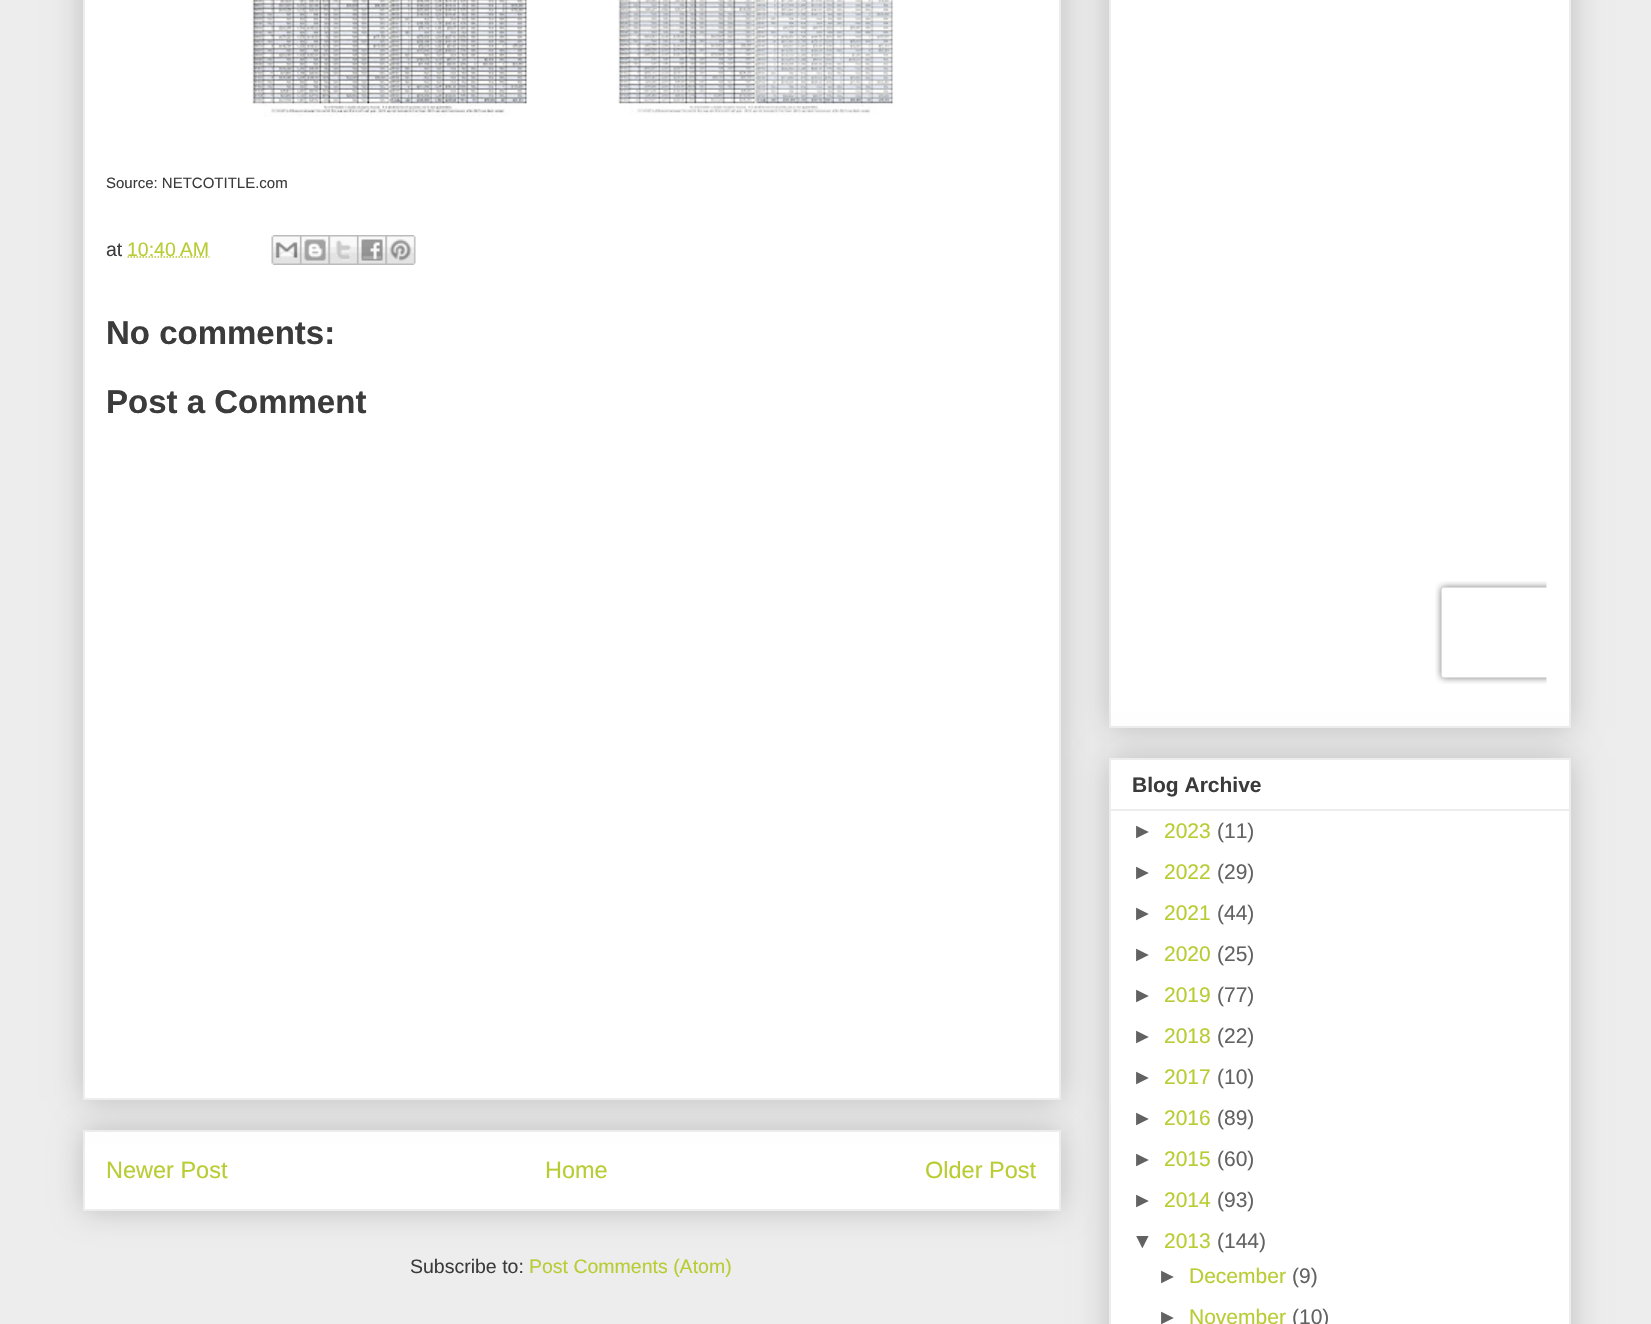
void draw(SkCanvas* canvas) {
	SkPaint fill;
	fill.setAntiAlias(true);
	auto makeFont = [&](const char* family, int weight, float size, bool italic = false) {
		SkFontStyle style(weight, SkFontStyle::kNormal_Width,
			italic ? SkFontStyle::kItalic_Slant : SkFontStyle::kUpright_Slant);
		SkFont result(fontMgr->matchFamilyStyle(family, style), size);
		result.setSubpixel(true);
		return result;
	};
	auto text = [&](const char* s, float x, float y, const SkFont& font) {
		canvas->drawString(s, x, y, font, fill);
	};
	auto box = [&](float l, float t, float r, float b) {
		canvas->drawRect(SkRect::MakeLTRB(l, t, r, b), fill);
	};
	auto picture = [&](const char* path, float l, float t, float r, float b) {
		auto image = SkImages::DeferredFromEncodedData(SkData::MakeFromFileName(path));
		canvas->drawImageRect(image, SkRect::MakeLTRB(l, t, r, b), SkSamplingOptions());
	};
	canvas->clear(0xFFEDEDED);
	fill.setColor(0x33000000);
	fill.setMaskFilter(SkMaskFilter::MakeBlur(kNormal_SkBlurStyle, 15));
	canvas->drawRect(SkRect::MakeLTRB(83, 1130, 1061, 1211), fill);
	fill.setMaskFilter(nullptr);
	fill.setColor(0xFFFFFFFF);
	canvas->drawRect(SkRect::MakeLTRB(84, 1131, 1060, 1210), fill);
	fill.setStyle(SkPaint::kStroke_Style);
	fill.setStrokeWidth(2);
	fill.setColor(0xFFEDEDED);
	canvas->drawRect(SkRect::MakeLTRB(84, 1131, 1060, 1210), fill);
	fill.setStyle(SkPaint::kFill_Style);
	fill.setColor(0x33000000);
	fill.setMaskFilter(SkMaskFilter::MakeBlur(kNormal_SkBlurStyle, 15));
	canvas->drawRect(SkRect::MakeLTRB(83, -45, 1061, 1100), fill);
	fill.setMaskFilter(nullptr);
	fill.setColor(0xFFFFFFFF);
	canvas->drawRect(SkRect::MakeLTRB(84, -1, 1060, 1099), fill);
	fill.setStyle(SkPaint::kStroke_Style);
	fill.setColor(0xFFEDEDED);
	canvas->drawRect(SkRect::MakeLTRB(84, -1, 1060, 1099), fill);
	picture("image0.png", 252, 0, 528, 117);
	picture("image1.png", 618, 0, 894, 115);
	fill.setStrokeWidth(1.5f);
	fill.setColor(0xFFBACC33);
	fill.setPathEffect(SkDashPathEffect::Make({{1.5f, 1.5f}}, 0));
	canvas->drawPath(SkPathBuilder().moveTo(127.5f, 257).lineTo(209.5f, 257).detach(), fill);
	fill.setPathEffect(nullptr);
	picture("image2.png", 271, 235, 300, 265);
	picture("image3.png", 300, 235, 329, 265);
	picture("image4.png", 328, 235, 357, 265);
	picture("image5.png", 357, 235, 386, 265);
	picture("image6.png", 385, 235, 416, 265);
	fill.setStyle(SkPaint::kFill_Style);
	fill.setColor(0x33000000);
	fill.setMaskFilter(SkMaskFilter::MakeBlur(kNormal_SkBlurStyle, 15));
	canvas->drawRect(SkRect::MakeLTRB(1109, -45, 1571, 728), fill);
	fill.setMaskFilter(nullptr);
	fill.setColor(0xFFFFFFFF);
	canvas->drawRect(SkRect::MakeLTRB(1110, -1, 1570, 727), fill);
	fill.setStyle(SkPaint::kStroke_Style);
	fill.setStrokeWidth(2);
	fill.setColor(0xFFEDEDED);
	canvas->drawRect(SkRect::MakeLTRB(1110, -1, 1570, 727), fill);
	picture("image7.png", 1435, 581, 1547, 684);
	fill.setStyle(SkPaint::kFill_Style);
	fill.setColor(0x33000000);
	fill.setMaskFilter(SkMaskFilter::MakeBlur(kNormal_SkBlurStyle, 15));
	canvas->drawRect(SkRect::MakeLTRB(1109, 758, 1571, 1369), fill);
	fill.setMaskFilter(nullptr);
	fill.setColor(0xFFFFFFFF);
	canvas->drawRect(SkRect::MakeLTRB(1110, 759, 1570, 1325), fill);
	fill.setStyle(SkPaint::kStroke_Style);
	fill.setColor(0xFFEDEDED);
	canvas->drawRect(SkRect::MakeLTRB(1110, 759, 1570, 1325), fill);
	fill.setStyle(SkPaint::kFill_Style);
	box(1110, 809, 1569, 811);
	auto font1 = makeFont("Liberation Sans", 400, 15);
	fill.setColor(0xFF3B3B3B);
	text("Source: NETCOTITLE.com", 106, 188, font1);
	auto font2 = makeFont("Liberation Sans", 400, 19.5f);
	text("at", 106, 256, font2);
	fill.setColor(0xFFBACC33);
	text("10:40 AM", 127, 256, font2);
	auto font3 = makeFont("Liberation Sans", 700, 33);
	fill.setColor(0xFF3B3B3B);
	text("No comments:", 106, 344, font3);
	text("Post a Comment", 106, 413, font3);
	auto font4 = makeFont("Liberation Sans", 400, 23.5f);
	fill.setColor(0xFFBACC33);
	text("Newer Post", 106, 1178, font4);
	text("Home", 545, 1178, font4);
	text("Older Post", 925, 1178, font4);
	fill.setColor(0xFF3B3B3B);
	text("Subscribe to:", 410, 1273, font2);
	fill.setColor(0xFFBACC33);
	text("Post Comments (Atom)", 529, 1273, font2);
	auto font5 = makeFont("Liberation Sans", 700, 21);
	fill.setColor(0xFF3B3B3B);
	text("Blog Archive", 1132, 792, font5);
	auto font6 = makeFont("Liberation Sans", 400, 21);
	fill.setColor(0xFF626262);
	text("►", 1132, 838, font6);
	fill.setColor(0xFFBACC33);
	text("2023", 1164, 838, font6);
	fill.setColor(0xFF626262);
	text("(11)", 1217, 838, font6);
	text("►", 1132, 879, font6);
	fill.setColor(0xFFBACC33);
	text("2022", 1164, 879, font6);
	fill.setColor(0xFF626262);
	text("(29)", 1217, 879, font6);
	text("►", 1132, 920, font6);
	fill.setColor(0xFFBACC33);
	text("2021", 1164, 920, font6);
	fill.setColor(0xFF626262);
	text("(44)", 1217, 920, font6);
	text("►", 1132, 961, font6);
	fill.setColor(0xFFBACC33);
	text("2020", 1164, 961, font6);
	fill.setColor(0xFF626262);
	text("(25)", 1217, 961, font6);
	text("►", 1132, 1002, font6);
	fill.setColor(0xFFBACC33);
	text("2019", 1164, 1002, font6);
	fill.setColor(0xFF626262);
	text("(77)", 1217, 1002, font6);
	text("►", 1132, 1043, font6);
	fill.setColor(0xFFBACC33);
	text("2018", 1164, 1043, font6);
	fill.setColor(0xFF626262);
	text("(22)", 1217, 1043, font6);
	text("►", 1132, 1084, font6);
	fill.setColor(0xFFBACC33);
	text("2017", 1164, 1084, font6);
	fill.setColor(0xFF626262);
	text("(10)", 1217, 1084, font6);
	text("►", 1132, 1125, font6);
	fill.setColor(0xFFBACC33);
	text("2016", 1164, 1125, font6);
	fill.setColor(0xFF626262);
	text("(89)", 1217, 1125, font6);
	text("►", 1132, 1166, font6);
	fill.setColor(0xFFBACC33);
	text("2015", 1164, 1166, font6);
	fill.setColor(0xFF626262);
	text("(60)", 1217, 1166, font6);
	text("►", 1132, 1207, font6);
	fill.setColor(0xFFBACC33);
	text("2014", 1164, 1207, font6);
	fill.setColor(0xFF626262);
	text("(93)", 1217, 1207, font6);
	text("▼", 1132, 1248, font6);
	fill.setColor(0xFFBACC33);
	text("2013", 1164, 1248, font6);
	fill.setColor(0xFF626262);
	text("(144)", 1217, 1248, font6);
	text("►", 1157, 1283, font6);
	fill.setColor(0xFFBACC33);
	text("December", 1189, 1283, font6);
	fill.setColor(0xFF626262);
	text("(9)", 1292, 1283, font6);
	text("►", 1157, 1324, font6);
	fill.setColor(0xFFBACC33);
	text("November", 1189, 1324, font6);
	fill.setColor(0xFF626262);
	text("(10)", 1292, 1324, font6);
}
